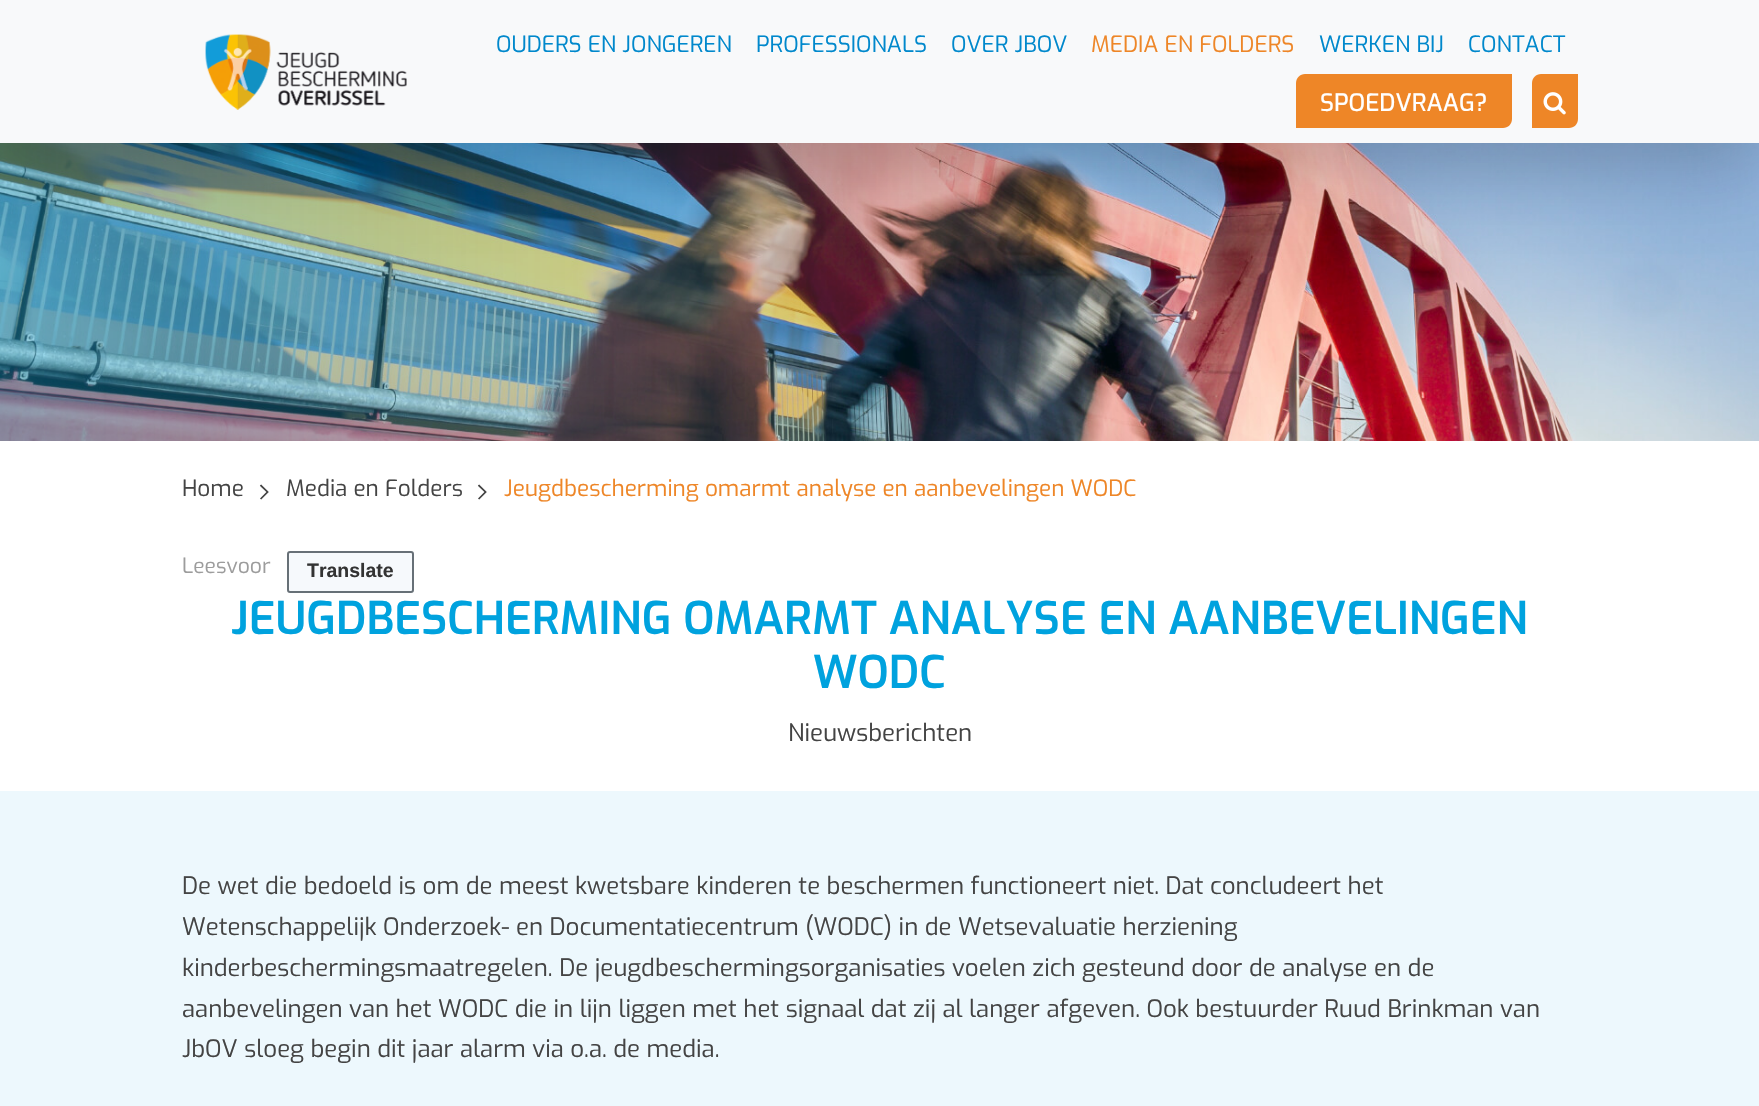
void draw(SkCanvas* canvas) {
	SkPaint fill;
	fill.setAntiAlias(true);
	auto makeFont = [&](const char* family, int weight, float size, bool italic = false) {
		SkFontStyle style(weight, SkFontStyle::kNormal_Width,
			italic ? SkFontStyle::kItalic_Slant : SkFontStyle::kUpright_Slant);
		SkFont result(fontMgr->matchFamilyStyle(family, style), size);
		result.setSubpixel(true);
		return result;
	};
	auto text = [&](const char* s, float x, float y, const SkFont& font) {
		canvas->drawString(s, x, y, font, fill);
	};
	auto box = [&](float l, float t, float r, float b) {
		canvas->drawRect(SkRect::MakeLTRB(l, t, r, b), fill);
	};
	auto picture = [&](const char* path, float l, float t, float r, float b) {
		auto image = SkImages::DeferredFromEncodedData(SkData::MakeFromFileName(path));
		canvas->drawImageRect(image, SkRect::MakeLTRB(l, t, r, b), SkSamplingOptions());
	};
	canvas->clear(0xFFFFFFFF);
	picture("image2.png", 0, 143, 1759, 441);
	fill.setColor(0x2E000000);
	fill.setMaskFilter(SkMaskFilter::MakeBlur(kNormal_SkBlurStyle, 36));
	canvas->drawRect(SkRect::MakeLTRB(0, 24, 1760, 167), fill);
	fill.setMaskFilter(nullptr);
	fill.setColor(0xFFF8F9FA);
	box(0, 0, 1759, 143);
	picture("image0.png", 205, 34, 407, 110);
	fill.setColor(0xFFEE8627);
	canvas->drawPath(SkPathBuilder().moveTo(1305, 74).lineTo(1512, 74).lineTo(1512, 119).cubicTo(1512, 124, 1508, 128, 1503, 128).lineTo(1296, 128).lineTo(1296, 83).cubicTo(1296, 78, 1300, 74, 1305, 74).close().detach(), fill);
	canvas->drawPath(SkPathBuilder().moveTo(1541, 74).lineTo(1578, 74).lineTo(1578, 119).cubicTo(1578, 124, 1574, 128, 1569, 128).lineTo(1532, 128).lineTo(1532, 83).cubicTo(1532, 78, 1536, 74, 1541, 74).close().detach(), fill);
	picture("image1.png", 1543, 92, 1566, 115);
	fill.setColor(0xFFF6F9FC);
	canvas->drawRoundRect(SkRect::MakeLTRB(288, 552, 413, 592), 2, 2, fill);
	fill.setStyle(SkPaint::kStroke_Style);
	fill.setStrokeWidth(2);
	fill.setColor(0xFF677077);
	canvas->drawRoundRect(SkRect::MakeLTRB(288, 552, 413, 592), 2, 2, fill);
	fill.setStyle(SkPaint::kFill_Style);
	fill.setColor(0xFFEDF8FD);
	box(0, 791, 1759, 1106);
	auto font1 = makeFont("Exo", 400, 22.5f);
	fill.setColor(0xFF0088CC);
	text("OUDERS EN JONGEREN", 496, 52, font1);
	text("PROFESSIONALS", 756, 52, font1);
	text("OVER JBOV", 951, 52, font1);
	fill.setColor(0xFFEE8627);
	text("MEDIA EN FOLDERS", 1091, 52, font1);
	fill.setColor(0xFF0088CC);
	text("WERKEN BIJ", 1319, 52, font1);
	text("CONTACT", 1468, 52, font1);
	auto font2 = makeFont("Exo", 500, 24);
	fill.setColor(0xFFFFFFFF);
	text("SPOEDVRAAG?", 1320, 111, font2);
	fill.setColor(0xFF444444);
	text("Home", 182, 496, font1);
	auto font3 = makeFont("Exo", 300, 36);
	text("›", 258, 502, font3);
	text("Media en Folders", 286, 496, font1);
	text("›", 476, 502, font3);
	fill.setColor(0xFFEE8627);
	text("Jeugdbescherming omarmt analyse en aanbevelingen WODC", 504, 496, font1);
	auto font4 = makeFont("Exo", 400, 21);
	fill.setColor(0xFF9C9C9C);
	text("Leesvoor", 182, 573, font4);
	auto font5 = makeFont("Liberation Sans", 700, 19.5f);
	fill.setColor(0xFF333333);
	text("Translate", 307, 577, font5);
	auto font6 = makeFont("Exo", 600, 45);
	fill.setColor(0xFF00A2DE);
	text("JEUGDBESCHERMING OMARMT ANALYSE EN AANBEVELINGEN", 231, 634, font6);
	text("WODC", 813, 688, font6);
	auto font7 = makeFont("Exo", 400, 24);
	fill.setColor(0xFF444444);
	text("Nieuwsberichten", 788, 741, font7);
	text("De wet die bedoeld is om de meest kwetsbare kinderen te beschermen functioneert niet. Dat concludeert het", 182, 894, font7);
	text("Wetenschappelijk Onderzoek- en Documentatiecentrum (WODC) in de Wetsevaluatie herziening", 182, 935, font7);
	text("kinderbeschermingsmaatregelen. De jeugdbeschermingsorganisaties voelen zich gesteund door de analyse en de", 182, 976, font7);
	text("aanbevelingen van het WODC die in lijn liggen met het signaal dat zij al langer afgeven. Ook bestuurder Ruud Brinkman van", 182, 1017, font7);
	text("JbOV sloeg begin dit jaar alarm via o.a. de media.", 182, 1057, font7);
}
